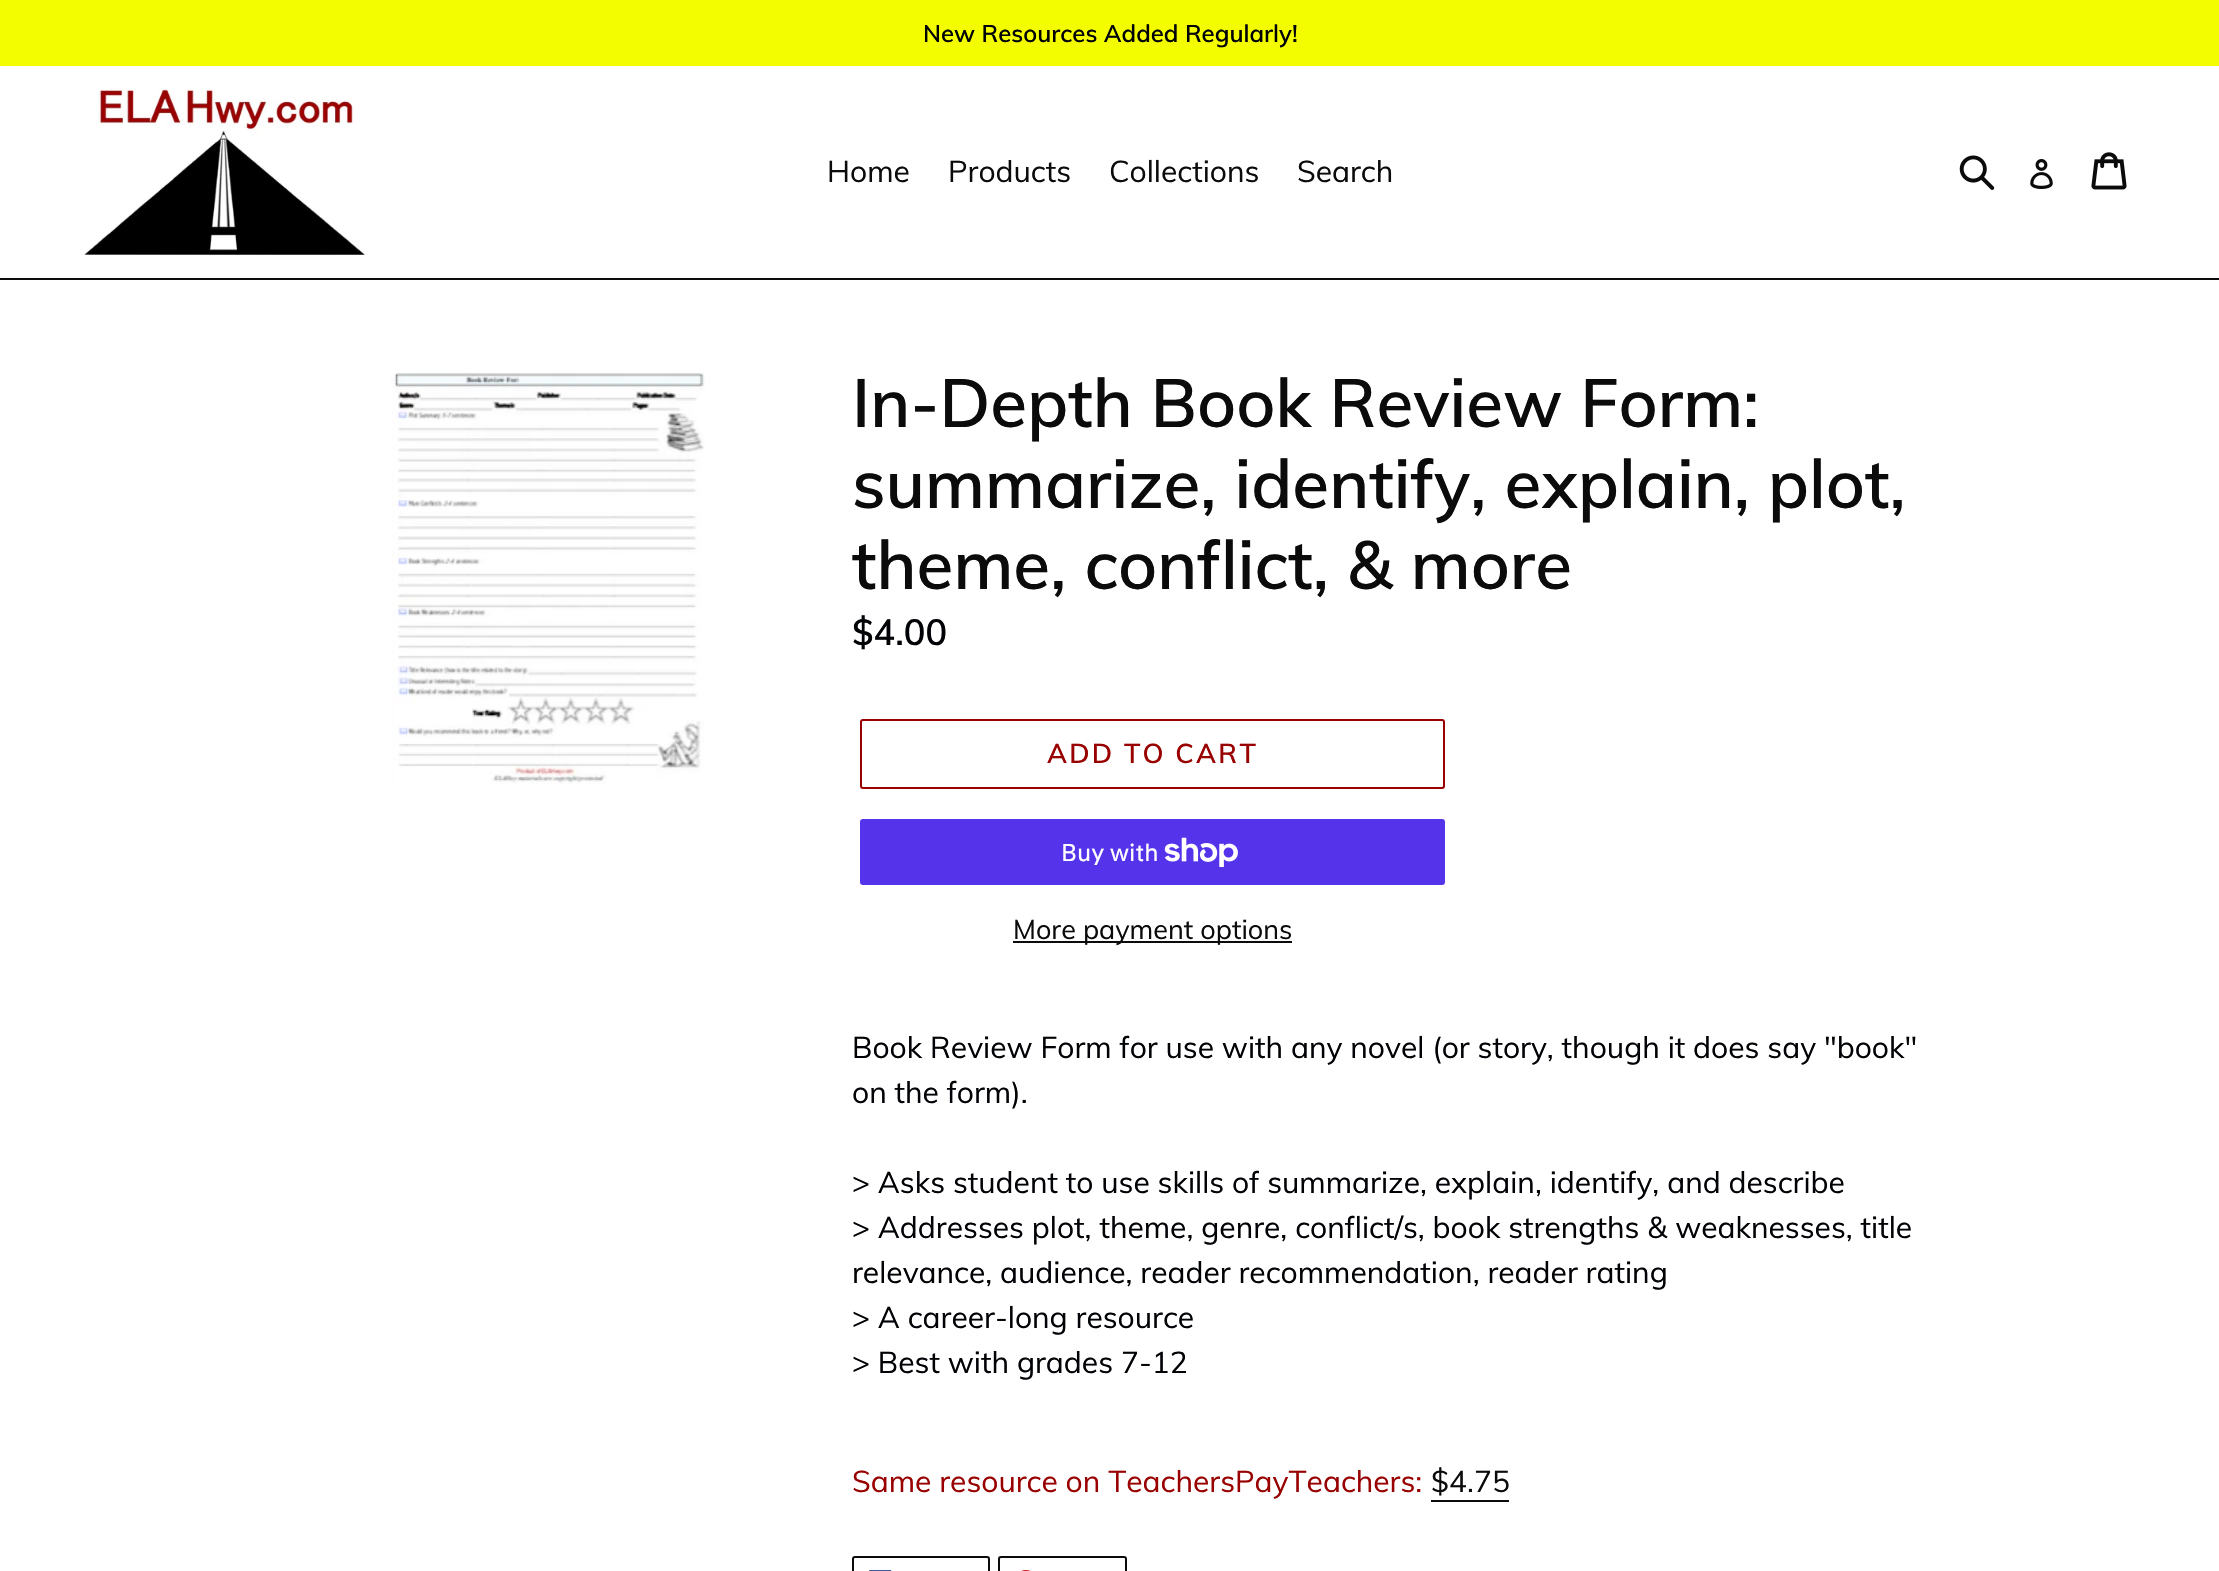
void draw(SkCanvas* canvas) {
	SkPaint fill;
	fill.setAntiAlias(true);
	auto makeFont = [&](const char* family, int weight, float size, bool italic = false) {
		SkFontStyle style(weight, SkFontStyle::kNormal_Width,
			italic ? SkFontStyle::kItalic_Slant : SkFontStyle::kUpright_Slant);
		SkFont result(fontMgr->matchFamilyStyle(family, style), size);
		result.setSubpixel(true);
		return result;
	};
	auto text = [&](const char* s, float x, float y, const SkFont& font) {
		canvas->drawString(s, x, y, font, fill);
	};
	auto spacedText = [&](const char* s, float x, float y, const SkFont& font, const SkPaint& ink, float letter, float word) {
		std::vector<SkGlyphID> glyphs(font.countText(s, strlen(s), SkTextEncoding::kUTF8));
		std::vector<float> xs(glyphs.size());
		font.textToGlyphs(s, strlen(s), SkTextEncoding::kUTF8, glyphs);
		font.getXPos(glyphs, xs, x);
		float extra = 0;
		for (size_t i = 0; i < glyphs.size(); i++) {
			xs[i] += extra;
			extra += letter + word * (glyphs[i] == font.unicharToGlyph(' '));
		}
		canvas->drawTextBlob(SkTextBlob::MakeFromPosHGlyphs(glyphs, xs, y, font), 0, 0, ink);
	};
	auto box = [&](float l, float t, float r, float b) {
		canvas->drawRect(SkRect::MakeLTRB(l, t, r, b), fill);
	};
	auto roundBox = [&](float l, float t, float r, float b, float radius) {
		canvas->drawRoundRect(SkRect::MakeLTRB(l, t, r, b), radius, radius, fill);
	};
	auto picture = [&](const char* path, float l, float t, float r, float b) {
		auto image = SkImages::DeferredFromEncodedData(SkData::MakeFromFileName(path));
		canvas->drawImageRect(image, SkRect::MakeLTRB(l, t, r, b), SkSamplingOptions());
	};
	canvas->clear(0xFFFFFFFF);
	fill.setColor(0xFFF3FD00);
	box(0, 0, 2219, 66);
	fill.setColor(0xFF0B0B0B);
	box(0, 278, 2219, 280);
	picture("image0.png", 84, 88, 365, 255);
	picture("image1.png", 1959, 155, 1995, 190);
	picture("image2.png", 2030, 159, 2053, 189);
	picture("image3.png", 2091, 152, 2127, 190);
	picture("image4.png", 391, 373, 705, 784);
	fill.setStyle(SkPaint::kStroke_Style);
	fill.setStrokeWidth(2);
	fill.setColor(0xFF990000);
	canvas->drawRoundRect(SkRect::MakeLTRB(861, 720, 1444, 788), 2, 2, fill);
	fill.setStyle(SkPaint::kFill_Style);
	fill.setColor(0xFF5433EB);
	roundBox(860, 819, 1445, 885, 3);
	picture("image5.png", 1164, 837, 1238, 867);
	fill.setColor(0xFF0B0B0B);
	box(1013, 941, 1292, 943);
	box(1431, 1500, 1509, 1502);
	fill.setStyle(SkPaint::kStroke_Style);
	canvas->drawRoundRect(SkRect::MakeLTRB(853, 1557, 989, 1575), 2, 2, fill);
	picture("image6.png", 869, 1570, 892, 1571);
	canvas->drawRoundRect(SkRect::MakeLTRB(999, 1557, 1126, 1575), 2, 2, fill);
	picture("image7.png", 1021, 1570, 1031, 1571);
	auto font1 = makeFont("Muli", 600, 24);
	fill.setStyle(SkPaint::kFill_Style);
	fill.setColor(0xFF000205);
	text("New Resources Added Regularly!", 923, 42, font1);
	auto font2 = makeFont("Muli", 400, 30);
	fill.setColor(0xFF0B0B0B);
	text("Home", 827, 182, font2);
	text("Products", 948, 182, font2);
	text("Collections", 1109, 182, font2);
	text("Search", 1297, 182, font2);
	auto font3 = makeFont("Muli", 600, 67.5f);
	text("In-Depth Book Review Form:", 852, 427, font3);
	text("summarize, identify, explain, plot,", 852, 508, font3);
	text("theme, conflict, & more", 852, 589, font3);
	auto font4 = makeFont("Muli", 600, 36);
	fill.setColor(0xFF000205);
	text("$4.00", 852, 645, font4);
	auto font5 = makeFont("Muli", 600, 27);
	fill.setColor(0xFF990000);
	spacedText("ADD TO CART", 1047, 763, font5, fill, 2.25f, 0);
	auto font6 = makeFont("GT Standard", 400, 24);
	fill.setColor(0xFFFFFFFF);
	text("Buy with", 1061, 861, font6);
	auto font7 = makeFont("Muli", 400, 27);
	fill.setColor(0xFF0B0B0B);
	text("More payment options", 1013, 939, font7);
	fill.setColor(0xFF000205);
	text("Book Review Form for use with any novel (or story, though it does say \"book\"", 852, 1058, font2);
	text("on the form).", 852, 1103, font2);
	text("> Asks student to use skills of summarize, explain, identify, and describe", 852, 1193, font2);
	text("> Addresses plot, theme, genre, conflict/s, book strengths & weaknesses, title", 852, 1238, font2);
	text("relevance, audience, reader recommendation, reader rating", 852, 1283, font2);
	text("> A career-long resource", 852, 1328, font2);
	text("> Best with grades 7-12", 852, 1373, font2);
	fill.setColor(0xFF990000);
	text("Same resource on TeachersPayTeachers:", 852, 1492, font2);
	fill.setColor(0xFF0B0B0B);
	text("$4.75", 1431, 1492, font2);
}
